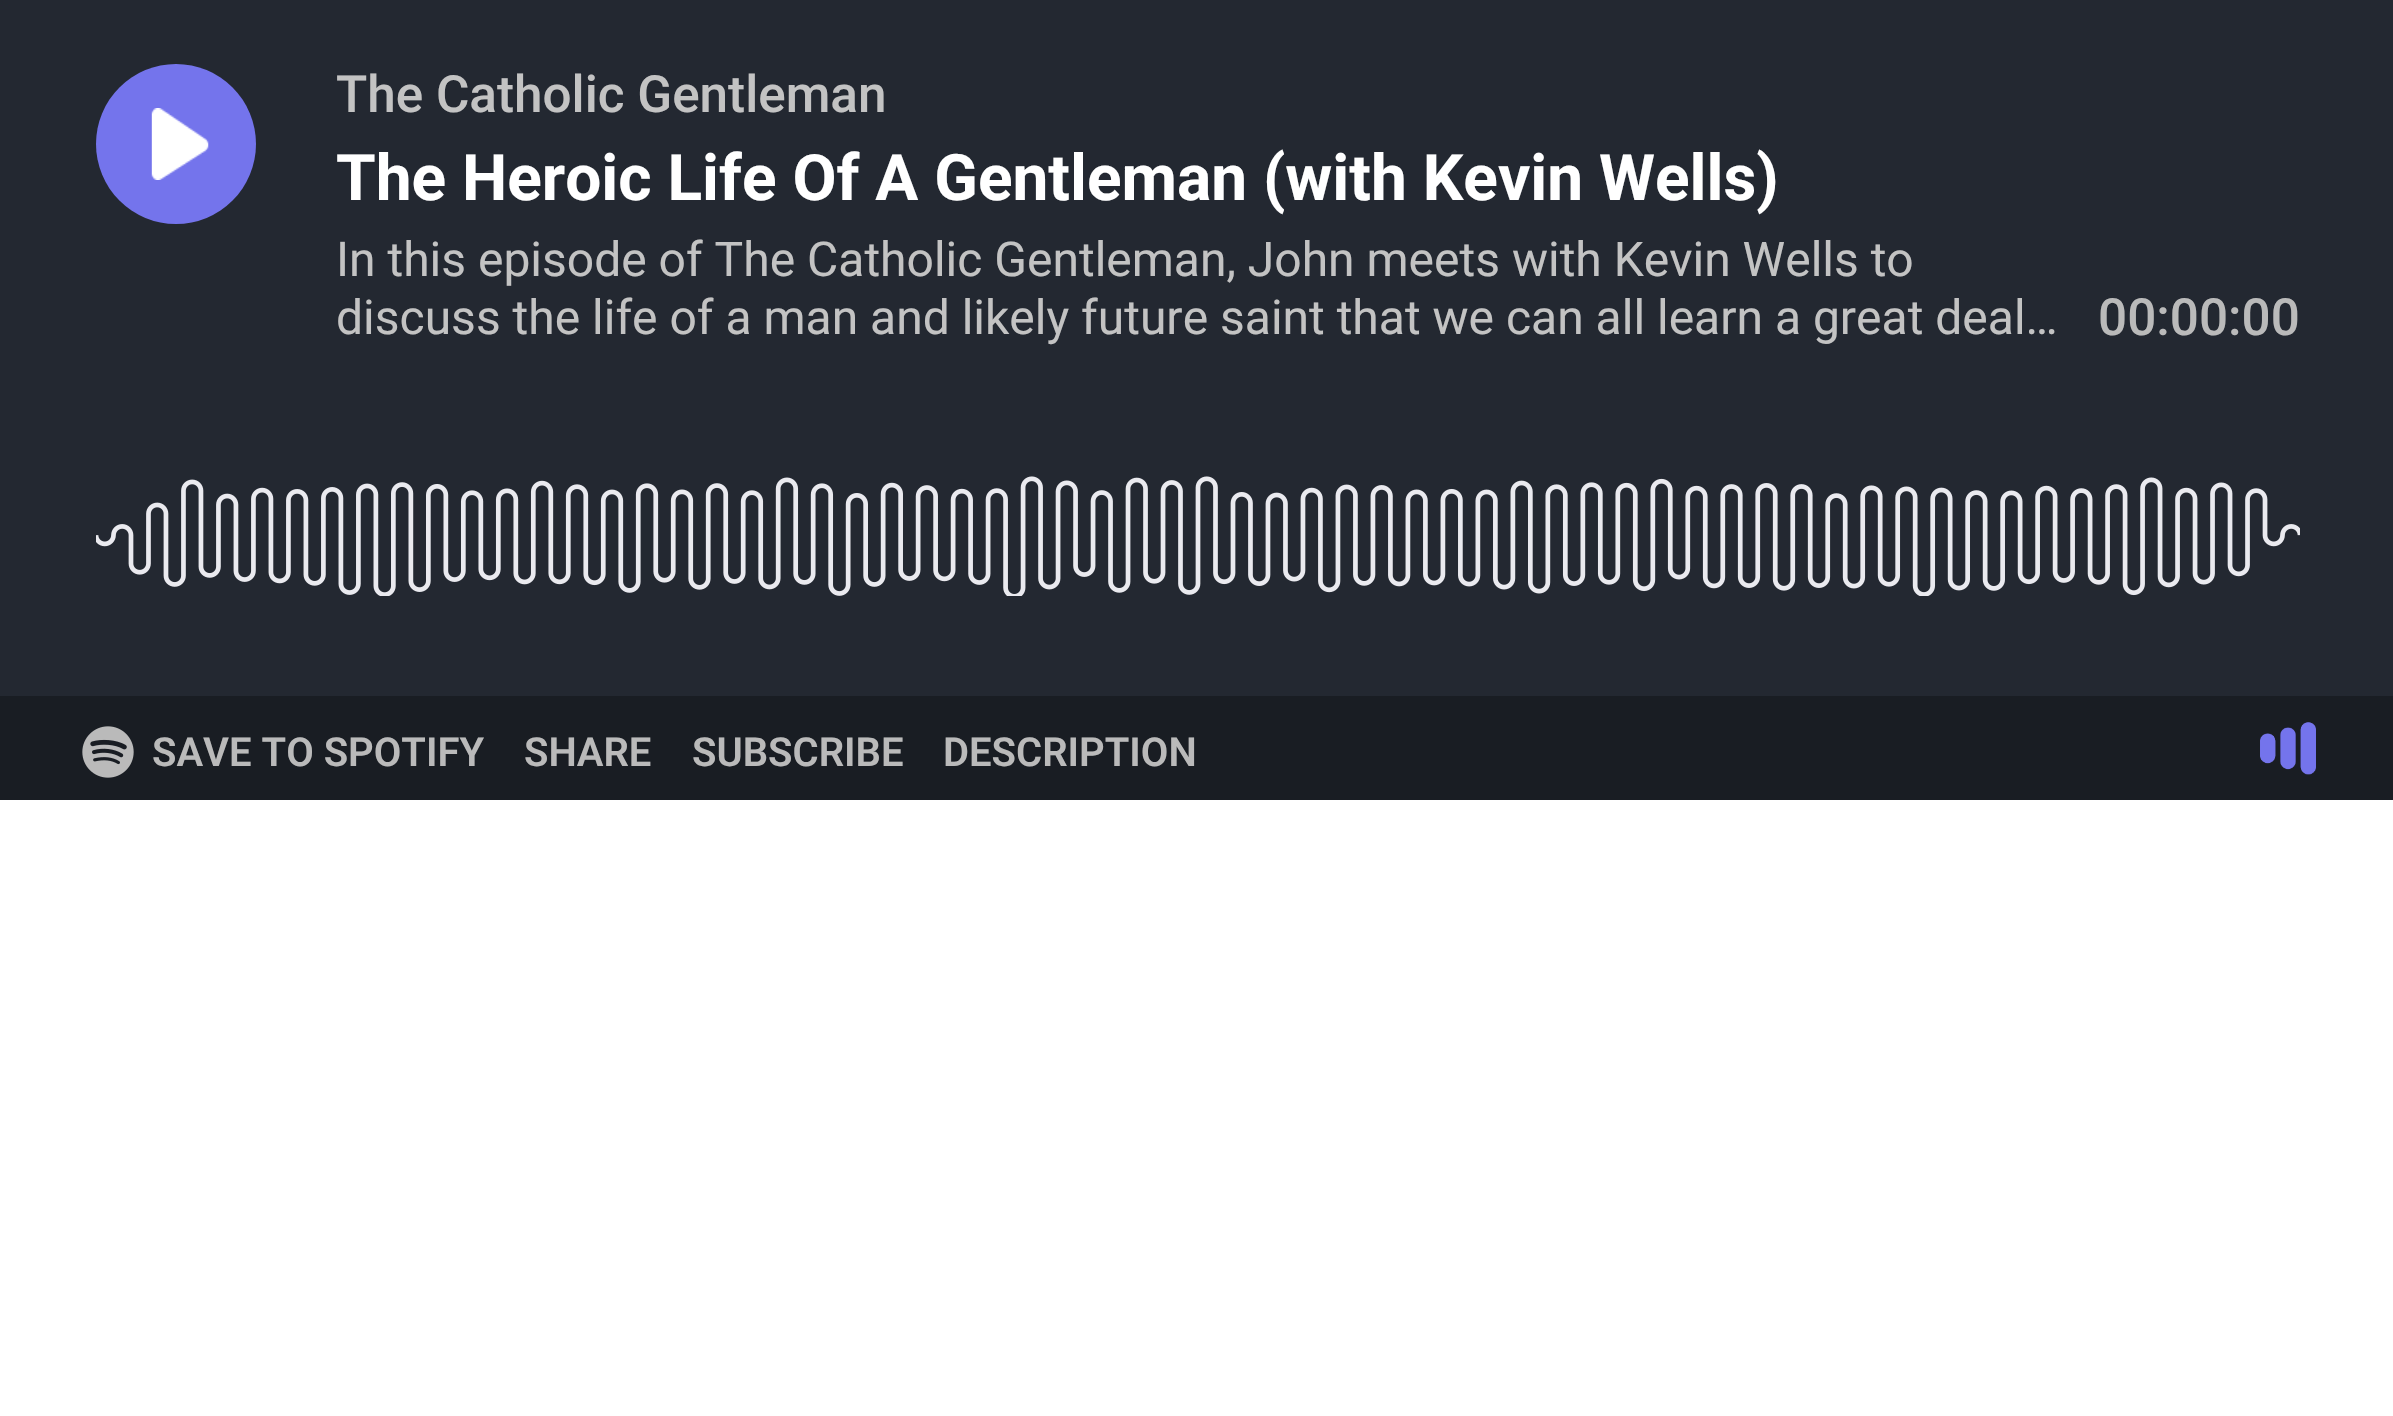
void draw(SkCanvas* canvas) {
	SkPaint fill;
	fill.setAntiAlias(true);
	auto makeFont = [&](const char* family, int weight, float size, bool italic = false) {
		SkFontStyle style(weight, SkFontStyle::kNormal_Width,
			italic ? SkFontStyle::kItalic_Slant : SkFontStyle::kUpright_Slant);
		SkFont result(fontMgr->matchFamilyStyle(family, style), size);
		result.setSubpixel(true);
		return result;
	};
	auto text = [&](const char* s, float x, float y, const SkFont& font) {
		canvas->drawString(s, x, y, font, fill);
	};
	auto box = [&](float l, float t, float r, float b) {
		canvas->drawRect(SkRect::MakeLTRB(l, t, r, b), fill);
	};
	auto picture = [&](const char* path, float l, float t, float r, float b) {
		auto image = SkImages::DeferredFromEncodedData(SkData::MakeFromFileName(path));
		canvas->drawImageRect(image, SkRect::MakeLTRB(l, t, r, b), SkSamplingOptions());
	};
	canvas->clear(0xFFFFFFFF);
	fill.setColor(0xFF232831);
	box(0, 0, 2393, 696);
	fill.setColor(0xFF7474EC);
	canvas->drawCircle(176, 144, 80, fill);
	picture("image0.png", 151, 108, 209, 180);
	picture("image1.png", 96, 476, 2300, 596);
	fill.setColor(0xFF191D23);
	box(0, 696, 2393, 800);
	picture("image2.png", 82, 726, 134, 778);
	picture("image3.png", 2260, 722, 2316, 775);
	auto font1 = makeFont("Roboto", 500, 51.25f);
	fill.setColor(0xFFC3C3C3);
	text("The Catholic Gentleman", 336, 112, font1);
	auto font2 = makeFont("Roboto", 700, 64);
	fill.setColor(0xFFFFFFFF);
	text("The Heroic Life Of A Gentleman (with Kevin Wells)", 336, 200, font2);
	auto font3 = makeFont("Roboto", 400, 48);
	fill.setColor(0xFFC3C3C3);
	text("In this episode of The Catholic Gentleman, John meets with Kevin Wells to", 336, 276, font3);
	text("discuss the life of a man and likely future saint that we can all learn a great deal…", 336, 334, font3);
	fill.setColor(0xFFBABABA);
	text("00:00:00", 2098, 335, font1);
	auto font4 = makeFont("Roboto", 600, 40);
	text("SAVE TO SPOTIFY", 152, 766, font4);
	text("SHARE", 524, 766, font4);
	text("SUBSCRIBE", 692, 766, font4);
	text("DESCRIPTION", 943, 766, font4);
}
